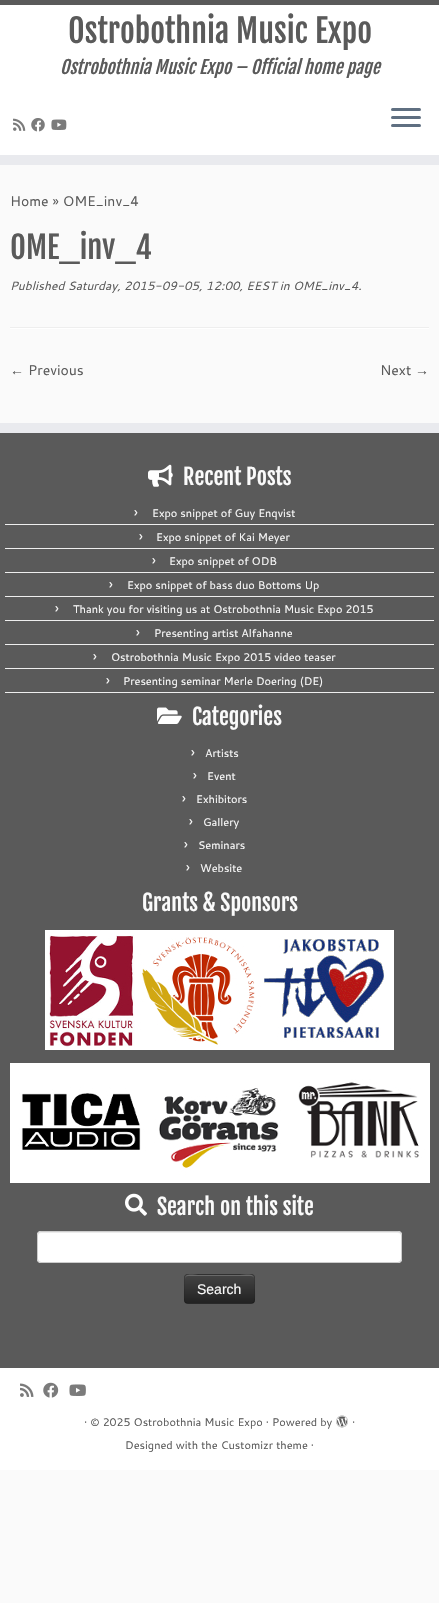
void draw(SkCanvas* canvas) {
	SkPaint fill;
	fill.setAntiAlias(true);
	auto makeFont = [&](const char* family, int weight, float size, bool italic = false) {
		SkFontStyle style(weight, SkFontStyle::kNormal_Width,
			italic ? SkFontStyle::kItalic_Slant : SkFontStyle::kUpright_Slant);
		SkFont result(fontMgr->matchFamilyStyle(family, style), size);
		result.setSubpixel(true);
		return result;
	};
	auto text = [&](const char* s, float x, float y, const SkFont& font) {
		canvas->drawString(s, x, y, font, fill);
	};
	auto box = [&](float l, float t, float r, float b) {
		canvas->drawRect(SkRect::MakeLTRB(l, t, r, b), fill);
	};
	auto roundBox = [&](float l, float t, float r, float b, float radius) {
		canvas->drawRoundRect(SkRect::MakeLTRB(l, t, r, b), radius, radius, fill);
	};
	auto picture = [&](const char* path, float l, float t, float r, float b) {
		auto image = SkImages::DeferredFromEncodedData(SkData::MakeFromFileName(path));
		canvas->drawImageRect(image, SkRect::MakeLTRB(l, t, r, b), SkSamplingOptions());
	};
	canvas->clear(0xFFFAFAFA);
	fill.setColor(0xFFFFFFFF);
	box(0, 5, 439, 155);
	fill.setColor(0xFF5A5A5A);
	box(0, 0, 439, 5);
	fill.setColor(0xFFE9EAEE);
	box(0, 155, 439, 165);
	picture("image0.png", 13, 118, 26, 131);
	picture("image1.png", 31, 118, 45, 132);
	picture("image2.png", 51, 119, 67, 130);
	fill.setColor(0xFF5F6F81);
	roundBox(391, 108, 421, 111, 1.5f);
	roundBox(391, 116, 421, 119, 1.5f);
	roundBox(391, 124, 421, 127, 1.5f);
	fill.setColor(0xFFEEEEEE);
	box(10, 327, 429, 328);
	fill.setColor(0xFFFFFFFF);
	box(10, 328, 429, 329);
	fill.setColor(0xFF5A5A5A);
	box(0, 433, 439, 1368);
	fill.setColor(0xFFE9EAEE);
	box(0, 423, 439, 433);
	picture("image3.png", 148, 464, 173, 487);
	fill.setColor(0xFFEEEEEE);
	box(5, 524, 434, 525);
	box(5, 548, 434, 549);
	box(5, 572, 434, 573);
	box(5, 596, 434, 597);
	box(5, 620, 434, 621);
	box(5, 644, 434, 645);
	box(5, 668, 434, 669);
	box(5, 692, 434, 693);
	picture("image4.png", 157, 707, 182, 724);
	picture("image5.png", 45, 930, 394, 1050);
	picture("image6.png", 10, 1063, 430, 1183);
	picture("image7.png", 125, 1193, 147, 1216);
	fill.setColor(0xFFFFFFFF);
	roundBox(37, 1231, 402, 1263, 4);
	fill.setColor(0xFFECECEC);
	canvas->drawPath(SkPathBuilder().moveTo(41, 1233).lineTo(398, 1233).cubicTo(400, 1233, 401, 1234, 401, 1236).cubicTo(401, 1234, 400, 1232, 398, 1232).lineTo(41, 1232).lineTo(39, 1233).lineTo(38, 1236).cubicTo(38, 1234, 39, 1233, 41, 1233).close().detach(), fill);
	fill.setStyle(SkPaint::kStroke_Style);
	fill.setStrokeWidth(1);
	fill.setColor(0xFFCCCCCC);
	canvas->drawRoundRect(SkRect::MakeLTRB(37.5f, 1231.5f, 401.5f, 1262.5f), 3.5f, 3.5f, fill);
	fill.setStyle(SkPaint::kFill_Style);
	fill.setColor(0xFF363636);
	roundBox(184, 1274, 255, 1304, 4);
	canvas->save();
	canvas->clipPath(SkPathBuilder().moveTo(188, 1274).lineTo(251, 1274).cubicTo(253, 1274, 255, 1276, 255, 1278).lineTo(255, 1300).cubicTo(255, 1302, 253, 1304, 251, 1304).lineTo(188, 1304).cubicTo(186, 1304, 184, 1302, 184, 1300).lineTo(184, 1278).cubicTo(184, 1276, 186, 1274, 188, 1274).close().detach(), true);
	{
		const SkColor colors[] = {0xFF444444, 0xFF222222};
		const float stops[] = {0, 1};
		const SkPoint ends[] = {{220, 1275}, {220, 1303}};
		fill.setShader(SkGradientShader::MakeLinear(ends, colors, stops, 2, SkTileMode::kClamp));
		fill.setAlpha(255);
	}
	box(184, 1275, 255, 1303);
	canvas->restore();
	fill.setShader(nullptr);
	fill.setColor(0x33FFFFFF);
	canvas->drawPath(SkPathBuilder().moveTo(188, 1276).lineTo(251, 1276).cubicTo(253, 1276, 254, 1277, 254, 1279).cubicTo(254, 1272, 245, 1275, 240, 1275).lineTo(198, 1275).cubicTo(194, 1275, 185, 1272, 185, 1279).cubicTo(185, 1277, 186, 1276, 188, 1276).close().detach(), fill);
	fill.setStyle(SkPaint::kStroke_Style);
	fill.setColor(0x40000000);
	canvas->drawPath(SkPathBuilder().moveTo(253.5f, 1302.5f).lineTo(251.5f, 1303.5f).lineTo(187.5f, 1303.5f).lineTo(185.5f, 1302.5f).detach(), fill);
	fill.setColor(0x1A000000);
	canvas->drawPath(SkPathBuilder().moveTo(185.5f, 1302.5f).cubicTo(183.5f, 1300.5f, 184.5f, 1292, 184.5f, 1289).cubicTo(184.5f, 1273, 182, 1274.5f, 198.5f, 1274.5f).lineTo(240.5f, 1274.5f).cubicTo(257, 1274.5f, 254.5f, 1273, 254.5f, 1289).cubicTo(254.5f, 1292, 255.5f, 1300.5f, 253.5f, 1302.5f).detach(), fill);
	fill.setStyle(SkPaint::kFill_Style);
	fill.setColor(0xFFFFFFFF);
	box(0, 1368, 439, 1470);
	picture("image8.png", 20, 1383, 34, 1397);
	picture("image9.png", 43, 1382, 59, 1398);
	picture("image10.png", 69, 1384, 86, 1396);
	picture("image11.png", 336, 1415, 348, 1428);
	auto font1 = makeFont("Fjalla One", 400, 32);
	fill.setColor(0xFF5A5A5A);
	text("Ostrobothnia Music Expo", 68, 43, font1);
	auto font2 = makeFont("Fjalla One", 400, 18, true);
	text("Ostrobothnia Music Expo – Official home page", 60, 74, font2);
	auto font3 = makeFont("Cantarell", 400, 14);
	text("Home » OME_inv_4", 10, 206, font3);
	auto font4 = makeFont("Fjalla One", 400, 30.5f);
	text("OME_inv_4", 10, 259, font4);
	auto font5 = makeFont("Cantarell", 400, 12, true);
	text("Published Saturday, 2015-09-05, 12:00, EEST in OME_inv_4.", 10, 290, font5);
	auto font6 = makeFont("Liberation Serif", 400, 14);
	text("←", 10, 375, font6);
	text("Previous", 28, 375, font3);
	text("Next", 380, 375, font3);
	text("→", 415, 375, font6);
	auto font7 = makeFont("Fjalla One", 400, 22);
	fill.setColor(0xFFFAFAFA);
	text("Recent Posts", 183, 485, font7);
	text("›", 134, 517, font3);
	auto font8 = makeFont("Cantarell", 400, 11);
	text("Expo snippet of Guy Enqvist", 152, 517, font8);
	text("›", 139, 541, font3);
	text("Expo snippet of Kai Meyer", 156, 541, font8);
	text("›", 152, 565, font3);
	text("Expo snippet of ODB", 169, 565, font8);
	text("›", 109, 589, font3);
	text("Expo snippet of bass duo Bottoms Up", 127, 589, font8);
	text("›", 55, 613, font3);
	text("Thank you for visiting us at Ostrobothnia Music Expo 2015", 73, 613, font8);
	text("›", 136, 637, font3);
	text("Presenting artist Alfahanne", 154, 637, font8);
	text("›", 93, 661, font3);
	text("Ostrobothnia Music Expo 2015 video teaser", 111, 661, font8);
	text("›", 106, 685, font3);
	text("Presenting seminar Merle Doering (DE)", 123, 685, font8);
	text("Categories", 192, 725, font7);
	text("›", 191, 757, font3);
	text("Artists", 205, 757, font8);
	text("›", 193, 780, font3);
	text("Event", 207, 780, font8);
	text("›", 182, 803, font3);
	text("Exhibitors", 196, 803, font8);
	text("›", 189, 826, font3);
	text("Gallery", 203, 826, font8);
	text("›", 184, 849, font3);
	text("Seminars", 198, 849, font8);
	text("›", 186, 872, font3);
	text("Website", 200, 872, font8);
	text("Grants & Sponsors", 142, 911, font7);
	text("Search on this site", 157, 1215, font7);
	auto font9 = makeFont("Liberation Sans", 400, 14);
	text("Search", 197, 1294, font9);
	fill.setColor(0xFF5A5A5A);
	text("· © 2025 Ostrobothnia Music Expo · Powered by", 84, 1426, font8);
	text("·", 352, 1426, font8);
	text("Designed with the Customizr theme ·", 125, 1449, font8);
}
